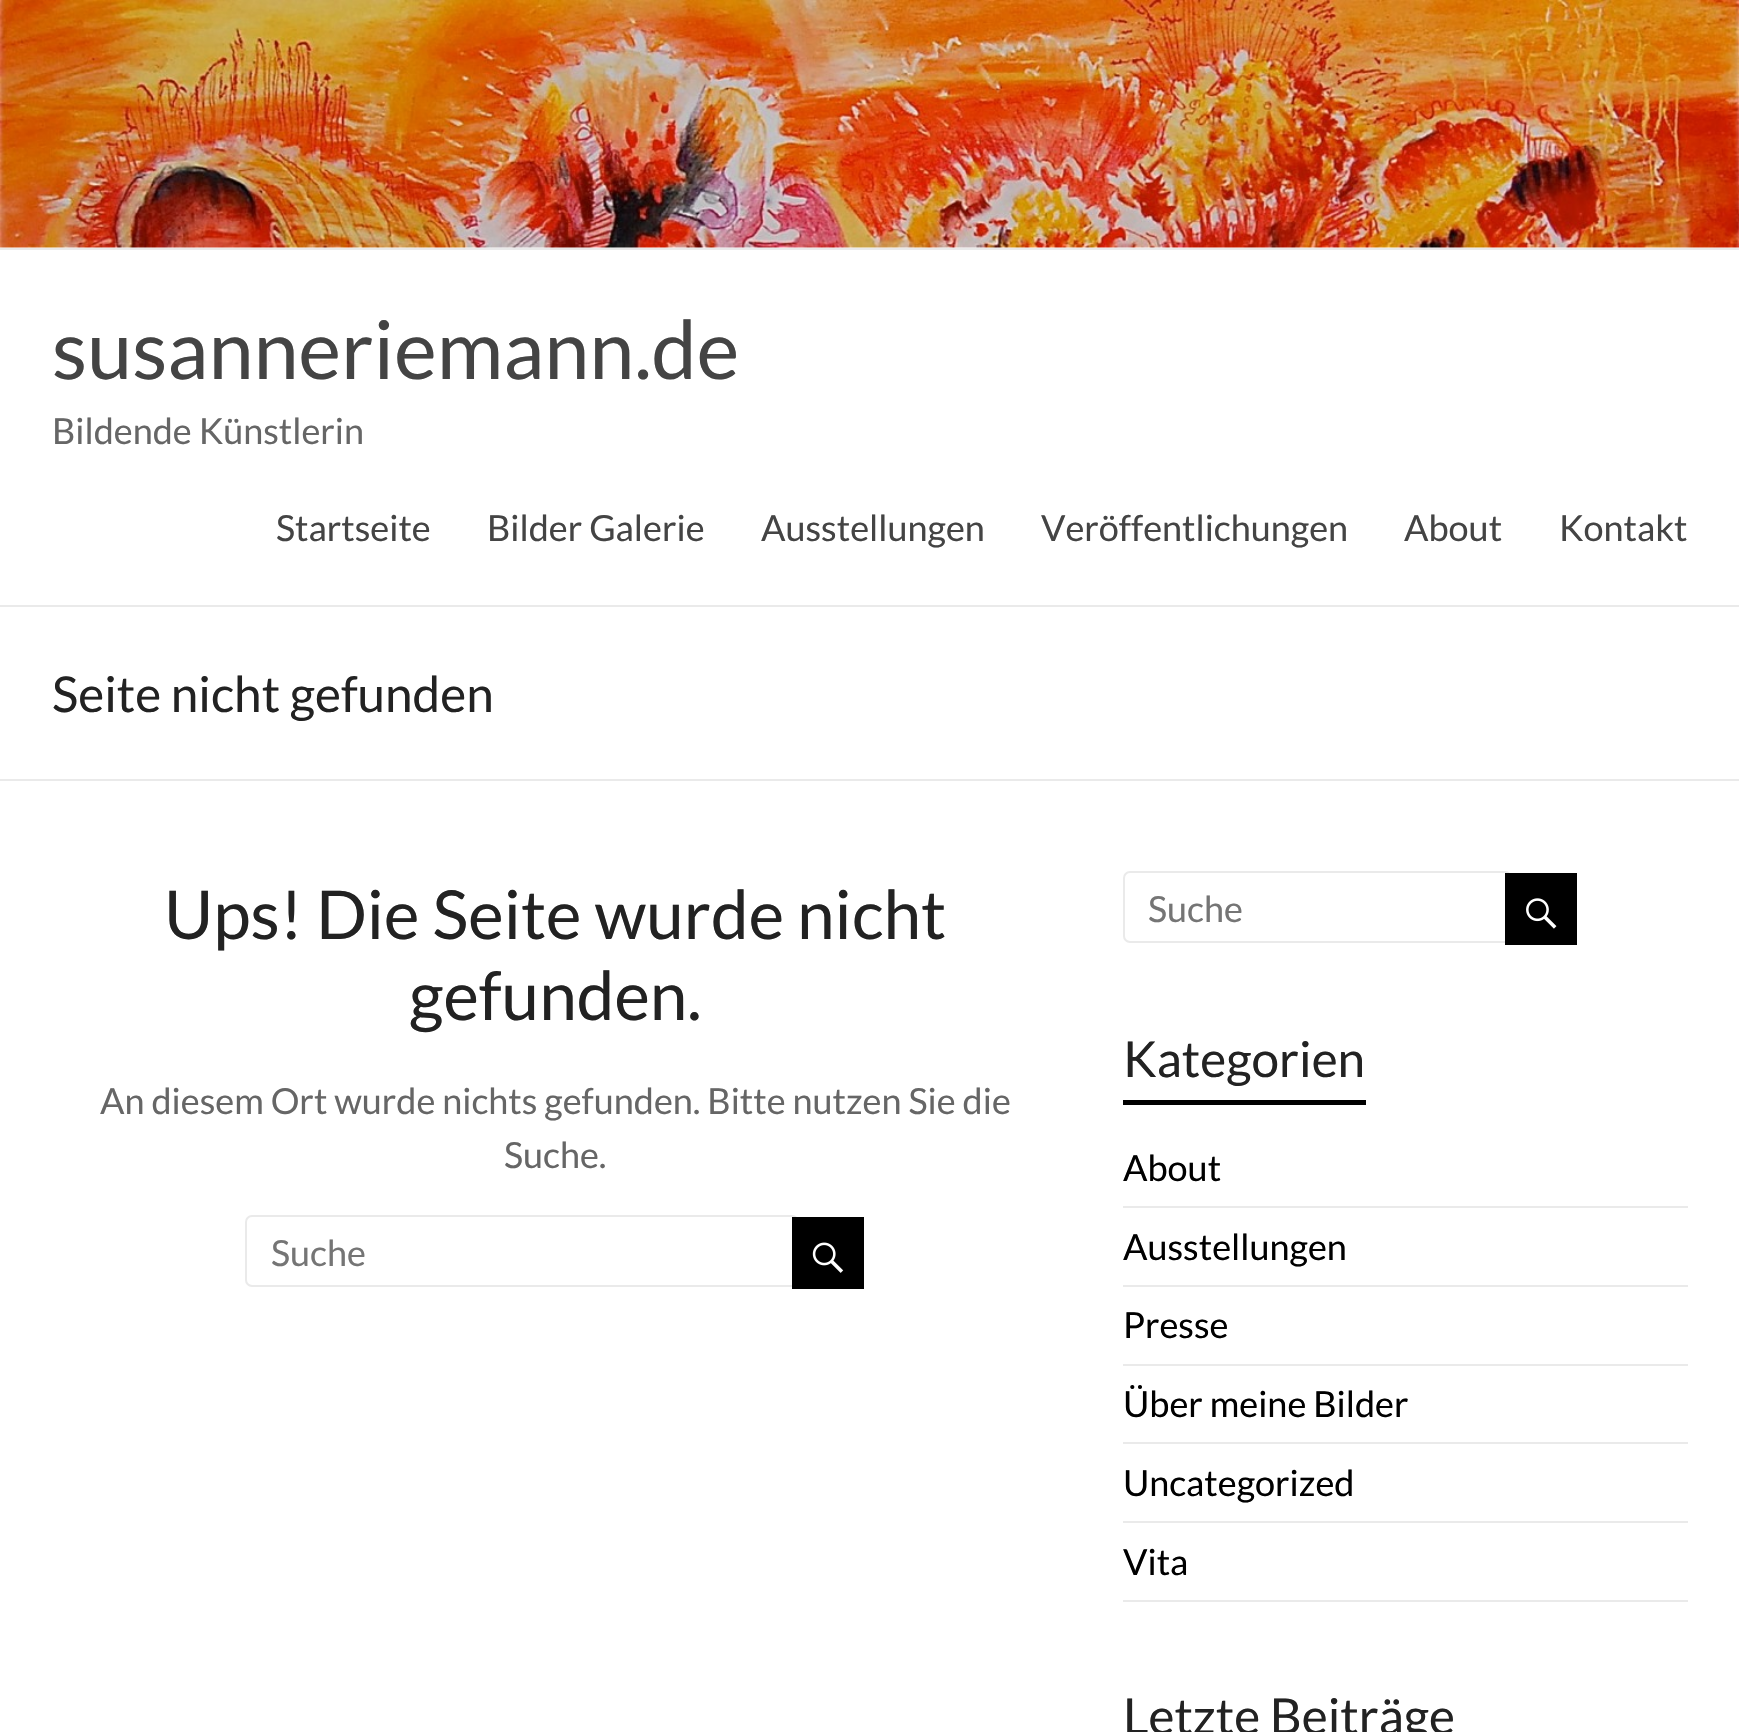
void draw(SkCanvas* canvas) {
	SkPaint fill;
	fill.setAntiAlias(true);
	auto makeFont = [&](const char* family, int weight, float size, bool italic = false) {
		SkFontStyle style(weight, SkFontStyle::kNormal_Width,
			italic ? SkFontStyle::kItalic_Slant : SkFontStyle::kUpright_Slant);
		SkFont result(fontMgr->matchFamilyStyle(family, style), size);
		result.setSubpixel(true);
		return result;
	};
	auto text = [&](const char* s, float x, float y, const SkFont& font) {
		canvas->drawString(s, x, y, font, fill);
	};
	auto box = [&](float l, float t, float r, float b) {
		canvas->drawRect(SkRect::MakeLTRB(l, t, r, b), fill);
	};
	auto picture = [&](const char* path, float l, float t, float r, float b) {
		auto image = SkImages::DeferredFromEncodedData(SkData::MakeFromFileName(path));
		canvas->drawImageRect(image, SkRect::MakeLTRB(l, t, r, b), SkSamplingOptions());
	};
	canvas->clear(0xFFFFFFFF);
	picture("image0.png", 0, 0, 1739, 248);
	fill.setColor(0xFFEAEAEA);
	box(0, 248, 1739, 250);
	box(0, 605, 1739, 607);
	box(0, 779, 1739, 781);
	fill.setStyle(SkPaint::kStroke_Style);
	fill.setStrokeWidth(2);
	canvas->drawRoundRect(SkRect::MakeLTRB(246, 1216, 798, 1286), 6, 6, fill);
	fill.setStyle(SkPaint::kFill_Style);
	fill.setColor(0xFF000000);
	box(792, 1217, 864, 1289);
	picture("image1.png", 812, 1242, 844, 1273);
	fill.setStyle(SkPaint::kStroke_Style);
	fill.setColor(0xFFEAEAEA);
	canvas->drawRoundRect(SkRect::MakeLTRB(1124, 872, 1511, 942), 6, 6, fill);
	fill.setStyle(SkPaint::kFill_Style);
	fill.setColor(0xFF000000);
	box(1505, 873, 1577, 945);
	picture("image2.png", 1526, 898, 1557, 929);
	box(1123, 1100, 1366, 1105);
	fill.setColor(0xFFEAEAEA);
	box(1123, 1206, 1688, 1208);
	box(1123, 1285, 1688, 1287);
	box(1123, 1364, 1688, 1366);
	box(1123, 1442, 1688, 1444);
	box(1123, 1521, 1688, 1523);
	box(1123, 1600, 1688, 1602);
	auto font1 = makeFont("Lato", 400, 81);
	fill.setColor(0xFF444444);
	text("susanneriemann.de", 52, 379, font1);
	auto font2 = makeFont("Lato", 400, 36);
	fill.setColor(0xFF666666);
	text("Bildende Künstlerin", 52, 444, font2);
	fill.setColor(0xFF444444);
	text("Startseite", 276, 541, font2);
	text("Bilder Galerie", 487, 541, font2);
	text("Ausstellungen", 761, 541, font2);
	text("Veröffentlichungen", 1041, 541, font2);
	text("About", 1404, 541, font2);
	text("Kontakt", 1559, 541, font2);
	auto font3 = makeFont("Lato", 400, 49.5f);
	fill.setColor(0xFF222222);
	text("Seite nicht gefunden", 52, 712, font3);
	auto font4 = makeFont("Lato", 400, 67.5f);
	text("Ups! Die Seite wurde nicht", 164, 939, font4);
	text("gefunden.", 409, 1020, font4);
	fill.setColor(0xFF666666);
	text("An diesem Ort wurde nichts gefunden. Bitte nutzen Sie die", 100, 1114, font2);
	text("Suche.", 504, 1168, font2);
	fill.setColor(0xFF757575);
	text("Suche", 271, 1266, font2);
	text("Suche", 1148, 922, font2);
	fill.setColor(0xFF222222);
	text("Kategorien", 1123, 1077, font3);
	fill.setColor(0xFF000000);
	text("About", 1123, 1181, font2);
	text("Ausstellungen", 1123, 1260, font2);
	text("Presse", 1123, 1338, font2);
	text("Über meine Bilder", 1123, 1417, font2);
	text("Uncategorized", 1123, 1496, font2);
	text("Vita", 1123, 1575, font2);
	fill.setColor(0xFF222222);
	text("Letzte Beiträge", 1123, 1734, font3);
}
